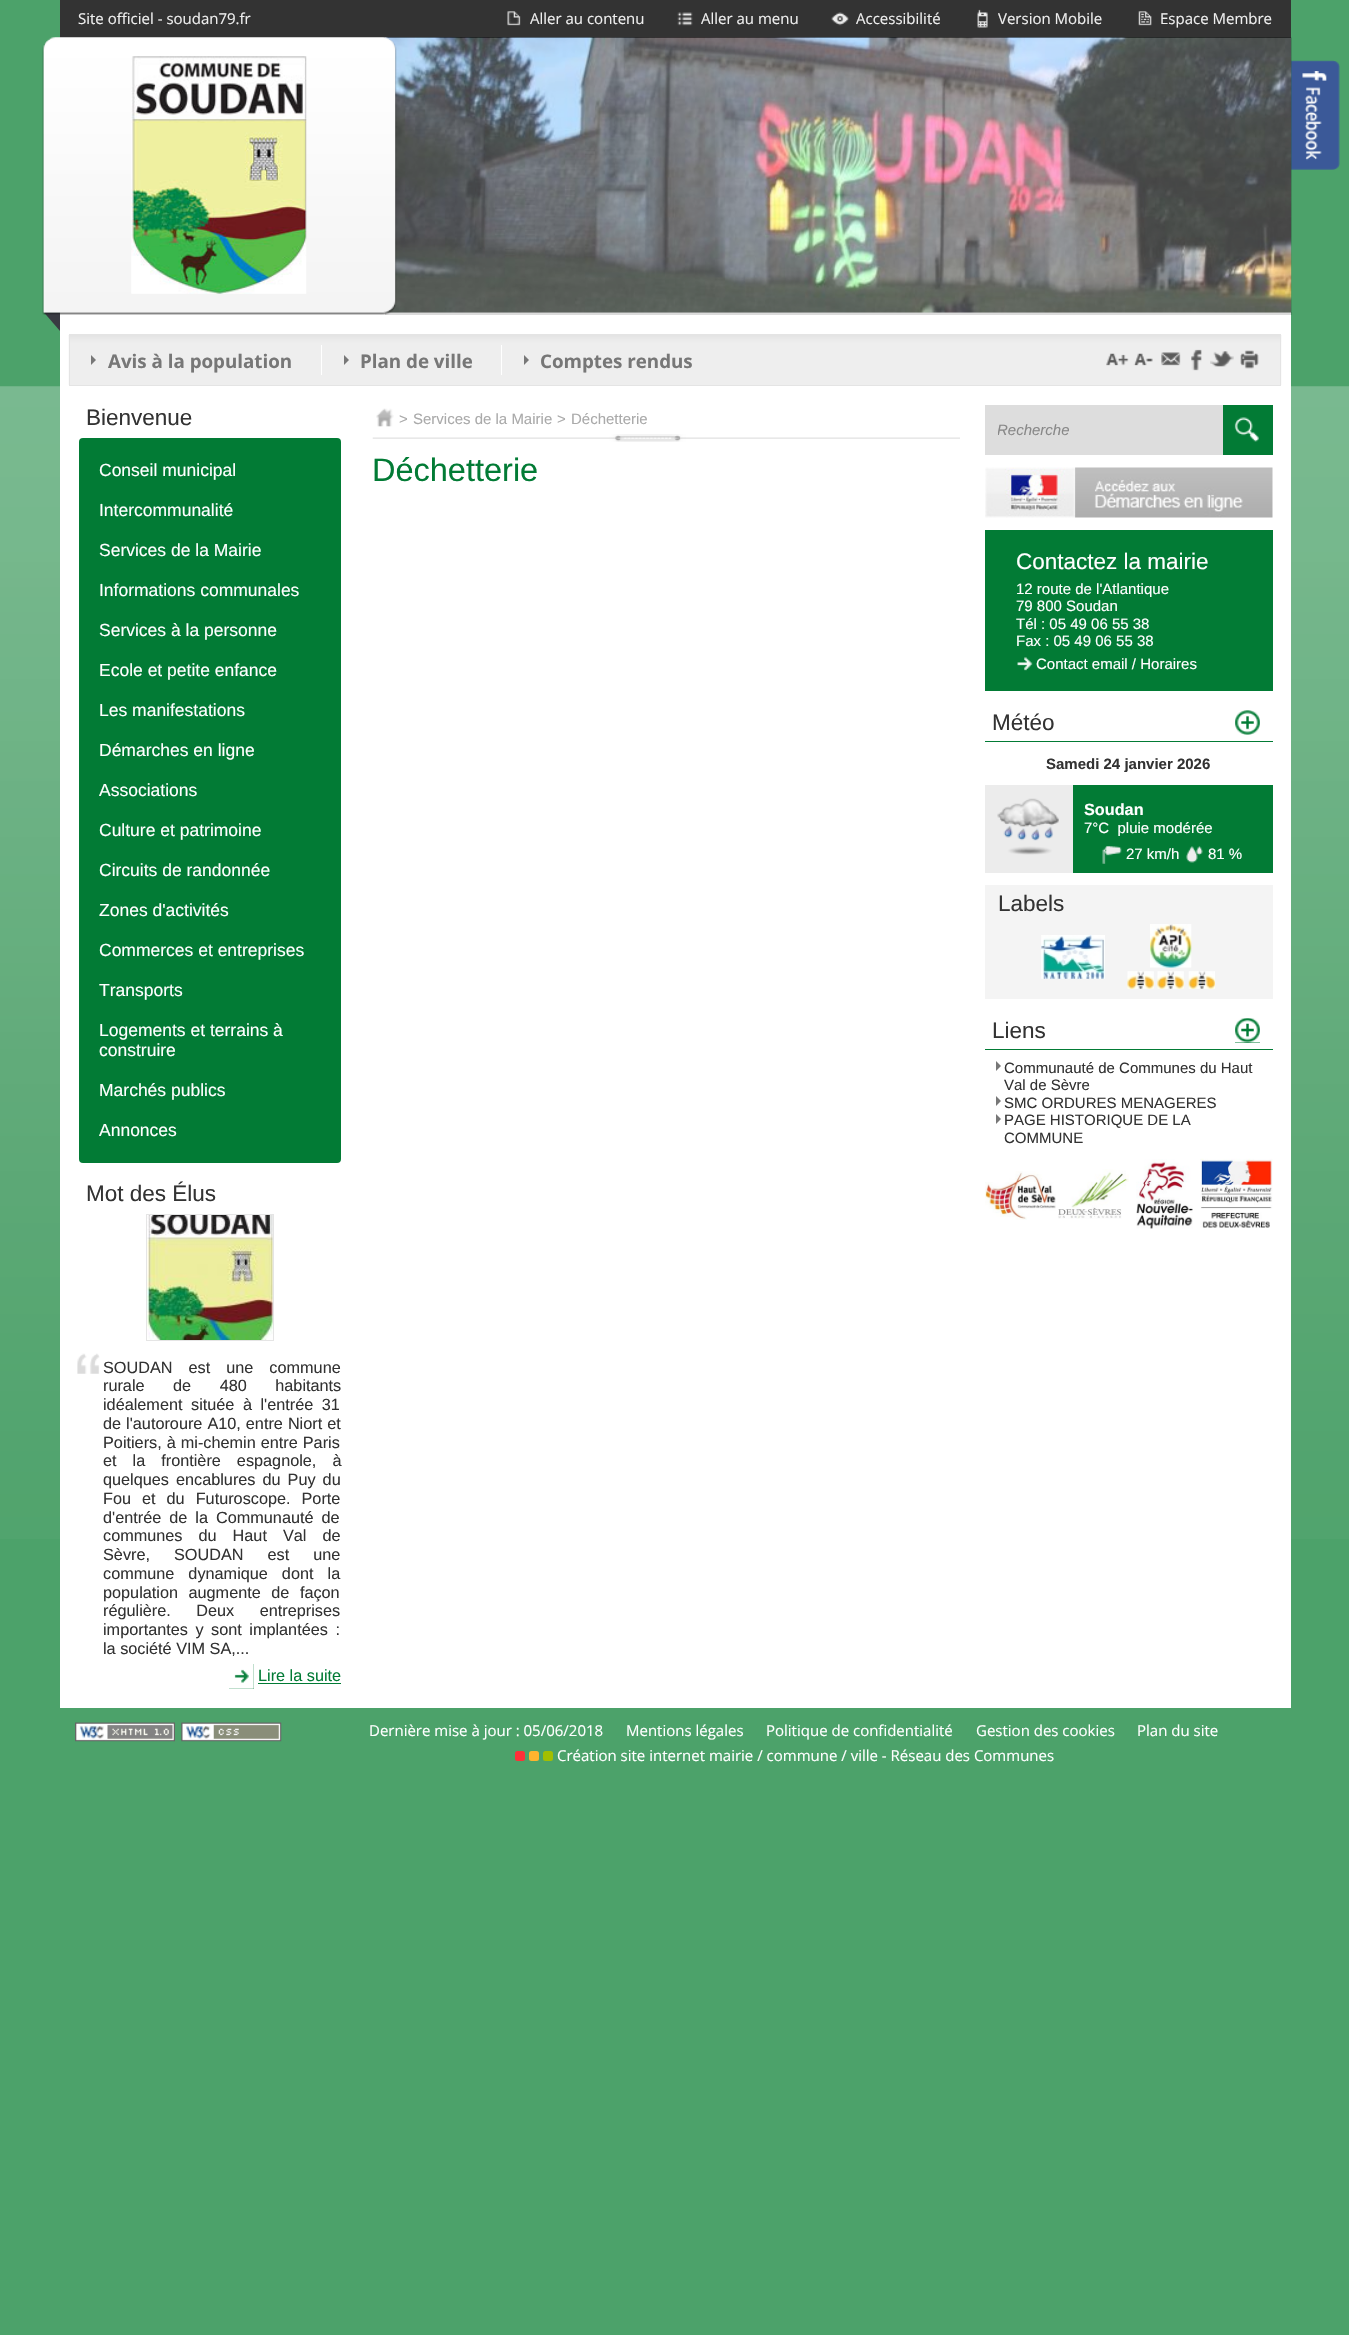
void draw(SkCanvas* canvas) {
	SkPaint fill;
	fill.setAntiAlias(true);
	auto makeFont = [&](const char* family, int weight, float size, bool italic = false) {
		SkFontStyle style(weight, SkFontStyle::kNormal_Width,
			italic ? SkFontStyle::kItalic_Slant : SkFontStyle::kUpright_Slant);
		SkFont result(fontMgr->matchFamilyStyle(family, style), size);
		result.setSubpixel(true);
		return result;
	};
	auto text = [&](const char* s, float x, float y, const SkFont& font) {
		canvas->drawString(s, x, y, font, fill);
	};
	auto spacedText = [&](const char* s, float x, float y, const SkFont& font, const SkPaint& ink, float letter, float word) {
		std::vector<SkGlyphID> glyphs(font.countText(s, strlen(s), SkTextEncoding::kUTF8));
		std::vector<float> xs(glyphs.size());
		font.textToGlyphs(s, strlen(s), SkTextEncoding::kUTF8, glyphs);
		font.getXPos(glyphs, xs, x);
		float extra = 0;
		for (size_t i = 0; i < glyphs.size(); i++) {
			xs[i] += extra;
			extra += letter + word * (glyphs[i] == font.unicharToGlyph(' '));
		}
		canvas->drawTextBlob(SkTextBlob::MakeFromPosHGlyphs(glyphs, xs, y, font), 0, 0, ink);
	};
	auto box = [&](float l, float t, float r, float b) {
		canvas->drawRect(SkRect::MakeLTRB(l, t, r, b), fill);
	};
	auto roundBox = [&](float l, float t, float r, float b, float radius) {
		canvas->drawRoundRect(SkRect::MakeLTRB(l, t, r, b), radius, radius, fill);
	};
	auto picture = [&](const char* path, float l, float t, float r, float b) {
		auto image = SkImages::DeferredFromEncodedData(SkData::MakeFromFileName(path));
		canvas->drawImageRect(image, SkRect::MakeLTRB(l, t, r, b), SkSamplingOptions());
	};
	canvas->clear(0xFF4CA26A);
	fill.setColor(0xFF418B5B);
	box(1291, 312, 1292, 315);
	picture("image0.png", 0, 386, 1349, 1539);
	fill.setColor(0xFFFFFFFF);
	box(60, 38, 1291, 1708);
	fill.setColor(0xFFDBDBDB);
	box(385, 312, 1291, 315);
	fill.setColor(0xFF333333);
	box(60, 0, 1291, 38);
	picture("image1.png", 507, 11, 521, 26);
	picture("image2.png", 677, 12, 693, 26);
	picture("image3.png", 831, 12, 849, 26);
	picture("image4.png", 977, 9, 988, 28);
	picture("image5.png", 1138, 11, 1152, 26);
	picture("image10.png", 1291, 60, 1340, 170);
	picture("image9.png", 385, 37, 1292, 313);
	picture("image6.png", 42, 37, 397, 315);
	fill.setColor(0xFF393A42);
	canvas->drawPath(SkPathBuilder().moveTo(60, 312.5f).lineTo(60, 331).lineTo(44, 312.5f).close().detach(), fill);
	picture("image7.png", 42, 37, 397, 315);
	picture("image8.png", 131, 56, 307, 294);
	picture("image11.png", 68, 335, 1282, 385);
	fill.setStyle(SkPaint::kStroke_Style);
	fill.setStrokeWidth(1);
	fill.setColor(0xFFE4E4E4);
	canvas->drawRect(SkRect::MakeLTRB(69.5f, 334.5f, 1280.5f, 385.5f), fill);
	fill.setStyle(SkPaint::kFill_Style);
	fill.setColor(0xFF777777);
	canvas->drawPath(SkPathBuilder().moveTo(91, 365).lineTo(91, 355).lineTo(96, 360).close().detach(), fill);
	fill.setColor(0xFFFFFFFF);
	box(321, 345, 322, 375);
	fill.setColor(0xFF777777);
	canvas->drawPath(SkPathBuilder().moveTo(344, 365).lineTo(344, 355).lineTo(349, 360).close().detach(), fill);
	fill.setColor(0xFFFFFFFF);
	box(501, 345, 502, 375);
	fill.setColor(0xFF777777);
	canvas->drawPath(SkPathBuilder().moveTo(524, 365).lineTo(524, 355).lineTo(529, 360).close().detach(), fill);
	picture("image12.png", 1106, 353, 1129, 366);
	picture("image13.png", 1133, 353, 1153, 366);
	picture("image14.png", 1161, 352, 1181, 366);
	picture("image15.png", 1191, 349, 1202, 371);
	picture("image16.png", 1210, 351, 1234, 367);
	picture("image17.png", 1240, 350, 1259, 369);
	fill.setColor(0xFF027B35);
	roundBox(79, 438, 341, 1163, 4);
	fill.setStyle(SkPaint::kStroke_Style);
	fill.setColor(0xFFE5E5E5);
	canvas->drawRect(SkRect::MakeLTRB(146.5f, 1214.5f, 273.5f, 1340.5f), fill);
	picture("image18.png", 147, 1215, 273, 1340);
	picture("image19.png", 77, 1353, 100, 1374);
	fill.setStyle(SkPaint::kFill_Style);
	fill.setColor(0xFF027B35);
	box(229, 1664, 254, 1689);
	picture("image20.png", 229, 1664, 254, 1689);
	box(258, 1683, 341, 1684);
	picture("image21.png", 372, 434, 960, 442);
	picture("image22.png", 376, 408, 394, 427);
	fill.setColor(0xFFDDDDDD);
	box(985, 405, 1223, 455);
	fill.setColor(0xFF027B35);
	box(1223, 405, 1273, 455);
	picture("image23.png", 1234, 417, 1259, 442);
	picture("image24.png", 985, 467, 1273, 518);
	box(985, 530, 1273, 691);
	picture("image25.png", 1017, 657, 1033, 671);
	box(985, 741, 1273, 742);
	box(1235, 710, 1260, 735);
	picture("image26.png", 1235, 710, 1260, 735);
	fill.setColor(0xFFECECEC);
	box(985, 785, 1073, 873);
	picture("image27.png", 997, 798, 1059, 855);
	fill.setColor(0xFF027B35);
	box(1073, 785, 1273, 873);
	picture("image28.png", 1102, 846, 1122, 864);
	picture("image29.png", 1186, 846, 1203, 863);
	fill.setColor(0xFFF4F4F4);
	box(985, 885, 1273, 999);
	picture("image30.png", 1041, 935, 1105, 979);
	picture("image31.png", 1150, 924, 1192, 968);
	picture("image32.png", 1127, 971, 1154, 989);
	picture("image32.png", 1157, 971, 1184, 989);
	picture("image33.png", 1188, 971, 1215, 989);
	fill.setColor(0xFF027B35);
	box(985, 1049, 1273, 1050);
	box(1235, 1018, 1260, 1043);
	picture("image34.png", 1235, 1018, 1260, 1043);
	fill.setColor(0xFF777777);
	canvas->drawPath(SkPathBuilder().moveTo(996, 1071).lineTo(996, 1061).lineTo(1001, 1066).close().detach(), fill);
	canvas->drawPath(SkPathBuilder().moveTo(996, 1106).lineTo(996, 1096).lineTo(1001, 1101).close().detach(), fill);
	canvas->drawPath(SkPathBuilder().moveTo(996, 1124).lineTo(996, 1114).lineTo(1001, 1119).close().detach(), fill);
	picture("image35.png", 985, 1171, 1056, 1220);
	picture("image36.png", 1058, 1169, 1129, 1219);
	picture("image37.png", 1136, 1159, 1193, 1229);
	picture("image38.png", 1200, 1158, 1273, 1228);
	picture("image39.png", 75, 1722, 175, 1742);
	picture("image40.png", 181, 1722, 282, 1742);
	fill.setColor(0xFFFF3038);
	roundBox(515, 1751, 525, 1761, 2.5f);
	fill.setColor(0xFFFFB42E);
	roundBox(529, 1751, 539, 1761, 2.5f);
	fill.setColor(0xFFA3BF00);
	roundBox(543, 1751, 553, 1761, 2.5f);
	auto font1 = makeFont("Open Sans", 400, 15);
	fill.setColor(0xFFEEEEEE);
	text("Site officiel - soudan79.fr", 78, 24, font1);
	text("Aller au contenu", 530, 24, font1);
	text("Aller au menu", 701, 24, font1);
	text("Accessibilité", 856, 24, font1);
	text("Version Mobile", 998, 24, font1);
	text("Espace Membre", 1160, 24, font1);
	auto font2 = makeFont("Open Sans", 700, 18.75f);
	fill.setColor(0xFF777777);
	text("Avis à la population", 108, 368, font2);
	text("Plan de ville", 360, 368, font2);
	text("Comptes rendus", 540, 368, font2);
	auto font3 = makeFont("Liberation Sans", 400, 22.5f);
	fill.setColor(0xFF333333);
	text("Bienvenue", 86, 425, font3);
	auto font4 = makeFont("Liberation Sans", 400, 17.5f);
	fill.setColor(0xFFFFFFFF);
	text("Conseil municipal", 99, 476, font4);
	text("Intercommunalité", 99, 516, font4);
	text("Services de la Mairie", 99, 556, font4);
	text("Informations communales", 99, 596, font4);
	text("Services à la personne", 99, 636, font4);
	text("Ecole et petite enfance", 99, 676, font4);
	text("Les manifestations", 99, 716, font4);
	text("Démarches en ligne", 99, 756, font4);
	text("Associations", 99, 796, font4);
	text("Culture et patrimoine", 99, 836, font4);
	text("Circuits de randonnée", 99, 876, font4);
	text("Zones d'activités", 99, 916, font4);
	text("Commerces et entreprises", 99, 956, font4);
	text("Transports", 99, 996, font4);
	text("Logements et terrains à", 99, 1036, font4);
	text("construire", 99, 1056, font4);
	text("Marchés publics", 99, 1096, font4);
	text("Annonces", 99, 1136, font4);
	fill.setColor(0xFF333333);
	text("Mot des Élus", 86, 1201, font3);
	auto font5 = makeFont("Liberation Sans", 400, 16.25f);
	spacedText("SOUDAN est une commune", 103, 1373, font5, fill, 0, 11.5f);
	spacedText("rurale de 480 habitants", 103, 1391, font5, fill, 0, 24);
	spacedText("idéalement située à l'entrée 31", 103, 1410, font5, fill, 0, 4);
	spacedText("de l'autoroure A10, entre Niort et", 103, 1429, font5, fill, 0, 0.5f);
	spacedText("Poitiers, à mi-chemin entre Paris", 103, 1448, font5, fill, 0, 0.5f);
	spacedText("et la frontière espagnole, à", 103, 1466, font5, fill, 0, 11.5f);
	spacedText("quelques encablures du Puy du", 103, 1485, font5, fill, 0, 2.5f);
	spacedText("Fou et du Futuroscope. Porte", 103, 1504, font5, fill, 0, 6.5f);
	spacedText("d'entrée de la Communauté de", 103, 1523, font5, fill, 0, 3.5f);
	spacedText("communes du Haut Val de", 103, 1541, font5, fill, 0, 11.5f);
	spacedText("Sèvre, SOUDAN est une", 103, 1560, font5, fill, 0, 19.5f);
	spacedText("commune dynamique dont la", 103, 1579, font5, fill, 0, 9.5f);
	spacedText("population augmente de façon", 103, 1598, font5, fill, 0, 6);
	spacedText("régulière. Deux entreprises", 103, 1616, font5, fill, 0, 21);
	spacedText("importantes y sont implantées :", 103, 1635, font5, fill, 0, 3);
	text("la société VIM SA,...", 103, 1654, font5);
	fill.setColor(0xFF027B35);
	text("Lire la suite", 258, 1681, font5);
	auto font6 = makeFont("Liberation Sans", 400, 15);
	fill.setColor(0xFFAAAAAA);
	text(">", 399, 424, font6);
	text("Services de la Mairie", 413, 424, font6);
	text(">", 557, 424, font6);
	text("Déchetterie", 571, 424, font6);
	auto font7 = makeFont("Liberation Sans", 400, 32.5f);
	fill.setColor(0xFF027B35);
	text("Déchetterie", 372, 481, font7);
	canvas->save();
	canvas->clipRect(SkRect::MakeLTRB(998, 421, 1210, 439));
	auto font8 = makeFont("Liberation Sans", 400, 15, true);
	fill.setColor(0xFF888888);
	text("Recherche", 997, 435, font8);
	canvas->restore();
	fill.setColor(0xFFFFFFFF);
	text("Contactez la mairie", 1016, 569, font3);
	text("12 route de l'Atlantique", 1016, 594, font6);
	text("79 800 Soudan", 1016, 611, font6);
	text("Tél : 05 49 06 55 38", 1016, 629, font6);
	text("Fax : 05 49 06 55 38", 1016, 646, font6);
	text("Contact email / Horaires", 1036, 669, font6);
	fill.setColor(0xFF333333);
	text("Météo", 992, 730, font3);
	auto font9 = makeFont("Liberation Sans", 700, 15);
	text("Samedi 24 janvier 2026", 1046, 769, font9);
	auto font10 = makeFont("Liberation Sans", 700, 16.25f);
	fill.setColor(0xFFFFFFFF);
	text("Soudan", 1084, 815, font10);
	text("7°C  pluie modérée", 1084, 833, font6);
	text("27 km/h", 1126, 859, font6);
	text("81 %", 1208, 859, font6);
	fill.setColor(0xFF333333);
	text("Labels", 998, 911, font3);
	text("Liens", 992, 1038, font3);
	text("Communauté de Communes du Haut", 1004, 1073, font6);
	text("Val de Sèvre", 1004, 1090, font6);
	text("SMC ORDURES MENAGERES", 1004, 1108, font6);
	text("PAGE HISTORIQUE DE LA", 1004, 1125, font6);
	text("COMMUNE", 1004, 1143, font6);
	fill.setColor(0xFFFFFFFF);
	text("Dernière mise à jour : 05/06/2018", 369, 1736, font1);
	text("Mentions légales", 626, 1736, font1);
	text("Politique de confidentialité", 766, 1736, font1);
	text("Gestion des cookies", 976, 1736, font1);
	text("Plan du site", 1137, 1736, font1);
	text("Création site internet mairie / commune / ville - Réseau des Communes", 557, 1761, font1);
}
